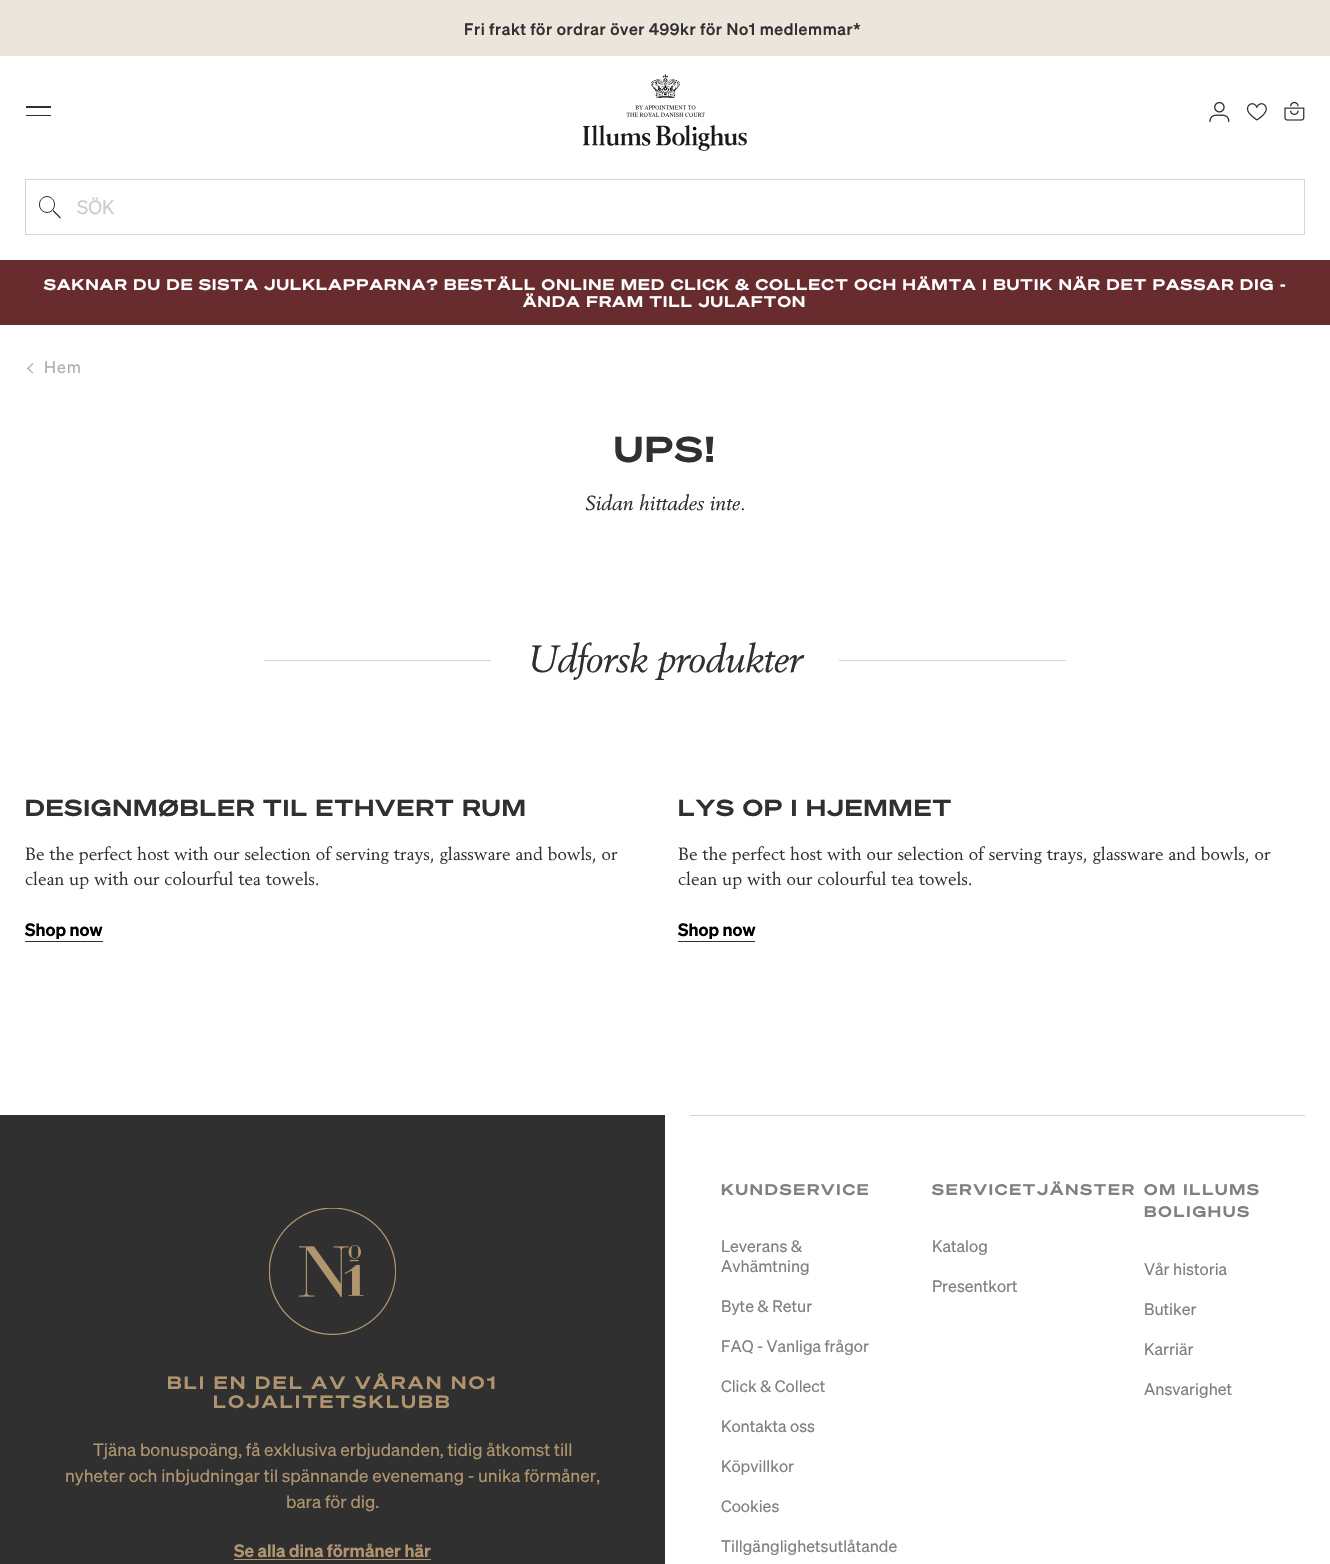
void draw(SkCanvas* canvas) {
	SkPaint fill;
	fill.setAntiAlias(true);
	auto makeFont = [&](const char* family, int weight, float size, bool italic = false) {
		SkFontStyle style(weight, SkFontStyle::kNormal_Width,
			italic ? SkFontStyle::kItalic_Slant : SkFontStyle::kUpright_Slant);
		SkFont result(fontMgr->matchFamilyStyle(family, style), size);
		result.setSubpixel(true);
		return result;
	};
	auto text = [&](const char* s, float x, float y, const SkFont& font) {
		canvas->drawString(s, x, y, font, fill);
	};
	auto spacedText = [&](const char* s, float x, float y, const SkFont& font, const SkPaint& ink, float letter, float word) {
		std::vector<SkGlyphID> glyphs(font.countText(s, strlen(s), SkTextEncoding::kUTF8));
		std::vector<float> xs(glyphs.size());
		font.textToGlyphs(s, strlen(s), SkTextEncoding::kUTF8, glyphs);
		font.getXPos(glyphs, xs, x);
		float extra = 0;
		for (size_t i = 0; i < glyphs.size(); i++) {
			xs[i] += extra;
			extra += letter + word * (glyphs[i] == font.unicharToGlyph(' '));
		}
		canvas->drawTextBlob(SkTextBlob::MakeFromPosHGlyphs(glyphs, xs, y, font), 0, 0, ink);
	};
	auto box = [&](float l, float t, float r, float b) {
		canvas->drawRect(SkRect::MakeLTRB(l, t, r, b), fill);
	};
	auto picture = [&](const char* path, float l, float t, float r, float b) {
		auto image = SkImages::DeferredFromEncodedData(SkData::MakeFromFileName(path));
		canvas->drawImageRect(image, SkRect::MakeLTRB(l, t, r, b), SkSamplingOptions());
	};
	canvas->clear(0xFFFFFFFF);
	fill.setColor(0xFFECE5DC);
	box(0, 0, 1330, 56);
	picture("image0.png", 583, 74, 747, 151);
	fill.setColor(0xFF303030);
	box(26, 106, 51, 108);
	box(26, 115, 51, 116);
	picture("image1.png", 1209, 101, 1230, 122);
	picture("image2.png", 1246, 103, 1267, 121);
	picture("image3.png", 1284, 101, 1305, 121);
	fill.setStyle(SkPaint::kStroke_Style);
	fill.setStrokeWidth(1);
	fill.setColor(0xFFD5D5D5);
	canvas->drawRect(SkRect::MakeLTRB(25.5f, 179.5f, 1304.5f, 234.5f), fill);
	fill.setColor(0xFF303030);
	canvas->drawRoundRect(SkRect::MakeLTRB(39.5f, 196.5f, 54.5f, 212.5f), 7.5f, 7.5f, fill);
	fill.setStrokeWidth(1.2f);
	canvas->drawPath(SkPathBuilder().moveTo(53, 210.5f).lineTo(60.5f, 218).detach(), fill);
	fill.setStyle(SkPaint::kFill_Style);
	fill.setColor(0xFF682C2E);
	box(0, 260, 1330, 325);
	fill.setColor(0xFFACACAC);
	canvas->drawPath(SkPathBuilder().moveTo(32.5f, 373.5f).lineTo(27, 368.5f).lineTo(28, 367.5f).lineTo(33.5f, 373).close().detach(), fill);
	canvas->drawPath(SkPathBuilder().moveTo(28, 369).lineTo(27, 368.5f).lineTo(32.5f, 363).lineTo(33.5f, 364).close().detach(), fill);
	fill.setColor(0xFFD5D5D5);
	box(264, 660, 1066, 661);
	fill.setColor(0xFFFFFFFF);
	box(491, 660, 839, 661);
	fill.setColor(0xFF303030);
	box(25, 941, 103, 942);
	box(678, 941, 755, 942);
	box(0, 1115, 665, 1564);
	picture("image4.png", 269, 1208, 396, 1335);
	fill.setColor(0xFFB0946F);
	box(234, 1559, 431, 1560);
	fill.setColor(0xFFD5D5D5);
	box(690, 1115, 1305, 1116);
	auto font1 = makeFont("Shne", 500, 16.25f);
	fill.setColor(0xFF303030);
	spacedText("Fri frakt för ordrar över 499kr för No1 medlemmar*", 464, 35, font1, fill, 0.6f, 0);
	auto font2 = makeFont("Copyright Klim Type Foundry", 400, 19);
	fill.setColor(0xFFCCCCCC);
	text("SÖK", 77, 214, font2);
	auto font3 = makeFont("Copyright Klim Type Foundry", 700, 15);
	fill.setColor(0xFFFFFFFF);
	spacedText("SAKNAR DU DE SISTA JULKLAPPARNA? BESTÄLL ONLINE MED CLICK & COLLECT OCH HÄMTA I BUTIK NÄR DET PASSAR DIG -", 44, 290, font3, fill, 1.25f, 0);
	spacedText("ÄNDA FRAM TILL JULAFTON", 523, 307, font3, fill, 1.25f, 0);
	auto font4 = makeFont("Copyright Klim Type Foundry", 400, 16.25f);
	fill.setColor(0xFFACACAC);
	spacedText("Hem", 44, 373, font4, fill, 1, 0);
	auto font5 = makeFont("Copyright Klim Type Foundry", 700, 35);
	fill.setColor(0xFF303030);
	spacedText("UPS!", 614, 462, font5, fill, 1.9f, 0);
	auto font6 = makeFont("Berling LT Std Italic", 400, 20);
	text("Sidan hittades inte.", 585, 510, font6);
	auto font7 = makeFont("Berling LT Std Italic", 400, 37.5f);
	spacedText("Udforsk produkter", 528, 672, font7, fill, -0.6f, 0);
	auto font8 = makeFont("Copyright Klim Type Foundry", 700, 22.5f);
	spacedText("DESIGNMØBLER TIL ETHVERT RUM", 25, 816, font8, fill, 1.25f, 0);
	auto font9 = makeFont("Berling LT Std", 400, 17.5f);
	text("Be the perfect host with our selection of serving trays, glassware and bowls, or", 25, 860, font9);
	text("clean up with our colourful tea towels.", 25, 885, font9);
	auto font10 = makeFont("Shne", 600, 17.5f);
	fill.setColor(0xFF000000);
	text("Shop now", 25, 936, font10);
	fill.setColor(0xFF303030);
	spacedText("LYS OP I HJEMMET", 678, 816, font8, fill, 1.25f, 0);
	text("Be the perfect host with our selection of serving trays, glassware and bowls, or", 678, 860, font9);
	text("clean up with our colourful tea towels.", 678, 885, font9);
	fill.setColor(0xFF000000);
	text("Shop now", 678, 936, font10);
	auto font11 = makeFont("Copyright Klim Type Foundry", 700, 17.5f);
	fill.setColor(0xFFB0946F);
	spacedText("BLI EN DEL AV VÅRAN NO1", 167, 1389, font11, fill, 2.5f, 0);
	spacedText("LOJALITETSKLUBB", 213, 1408, font11, fill, 2.5f, 0);
	auto font12 = makeFont("Copyright Klim Type Foundry", 400, 17.5f);
	text("Tjäna bonuspoäng, få exklusiva erbjudanden, tidig åtkomst till", 93, 1456, font12);
	text("nyheter och inbjudningar til spännande evenemang - unika förmåner,", 65, 1482, font12);
	text("bara för dig.", 286, 1508, font12);
	text("Se alla dina förmåner här", 234, 1557, font10);
	fill.setColor(0xFF808080);
	spacedText("KUNDSERVICE", 721, 1195, font3, fill, 1.9f, 0);
	text("Leverans &", 721, 1252, font4);
	text("Avhämtning", 721, 1272, font4);
	text("Byte & Retur", 721, 1312, font4);
	text("FAQ - Vanliga frågor", 721, 1352, font4);
	text("Click & Collect", 721, 1392, font4);
	text("Kontakta oss", 721, 1432, font4);
	text("Köpvillkor", 721, 1472, font4);
	text("Cookies", 721, 1512, font4);
	text("Tillgänglighetsutlåtande", 721, 1552, font4);
	spacedText("SERVICETJÄNSTER", 932, 1195, font3, fill, 1.9f, 0);
	text("Katalog", 932, 1252, font4);
	text("Presentkort", 932, 1292, font4);
	spacedText("OM ILLUMS", 1144, 1195, font3, fill, 1.9f, 0);
	spacedText("BOLIGHUS", 1144, 1217, font3, fill, 1.9f, 0);
	text("Vår historia", 1144, 1275, font4);
	text("Butiker", 1144, 1315, font4);
	text("Karriär", 1144, 1355, font4);
	text("Ansvarighet", 1144, 1395, font4);
}
